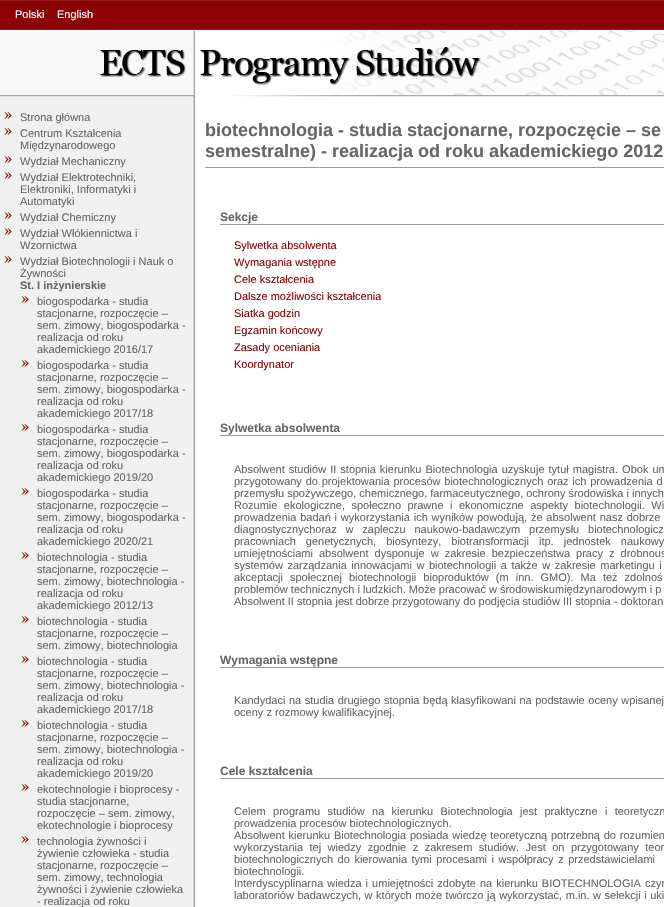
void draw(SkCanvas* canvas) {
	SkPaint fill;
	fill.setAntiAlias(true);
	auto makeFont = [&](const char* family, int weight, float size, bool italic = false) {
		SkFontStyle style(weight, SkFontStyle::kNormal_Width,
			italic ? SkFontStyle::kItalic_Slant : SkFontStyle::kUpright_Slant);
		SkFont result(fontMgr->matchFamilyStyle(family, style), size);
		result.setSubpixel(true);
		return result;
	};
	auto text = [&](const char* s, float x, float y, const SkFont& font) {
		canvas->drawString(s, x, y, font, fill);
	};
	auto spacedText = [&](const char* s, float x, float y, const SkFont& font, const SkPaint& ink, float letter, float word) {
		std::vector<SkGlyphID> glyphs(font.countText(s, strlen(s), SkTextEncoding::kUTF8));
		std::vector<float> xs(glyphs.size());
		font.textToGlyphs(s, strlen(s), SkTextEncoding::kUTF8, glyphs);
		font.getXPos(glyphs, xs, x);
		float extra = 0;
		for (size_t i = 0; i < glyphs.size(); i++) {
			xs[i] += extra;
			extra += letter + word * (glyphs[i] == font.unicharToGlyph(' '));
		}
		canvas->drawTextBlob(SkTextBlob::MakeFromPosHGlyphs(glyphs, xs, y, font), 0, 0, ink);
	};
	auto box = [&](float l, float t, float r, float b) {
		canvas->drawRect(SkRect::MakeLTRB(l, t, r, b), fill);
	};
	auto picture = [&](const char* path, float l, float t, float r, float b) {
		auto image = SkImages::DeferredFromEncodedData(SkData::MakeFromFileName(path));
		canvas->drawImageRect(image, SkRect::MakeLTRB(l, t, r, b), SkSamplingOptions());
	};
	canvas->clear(0xFFF0F0F0);
	picture("image0.png", 0, 0, 664, 97);
	picture("image1.png", 100, 30, 664, 110);
	picture("image2.png", 193, 110, 664, 907);
	picture("image3.png", 4, 112, 12, 119);
	picture("image3.png", 4, 128, 12, 135);
	picture("image3.png", 4, 156, 12, 163);
	picture("image3.png", 4, 172, 12, 179);
	picture("image3.png", 4, 212, 12, 219);
	picture("image3.png", 4, 228, 12, 235);
	picture("image3.png", 4, 256, 12, 263);
	picture("image3.png", 21, 296, 29, 303);
	picture("image3.png", 21, 360, 29, 367);
	picture("image3.png", 21, 424, 29, 431);
	picture("image3.png", 21, 488, 29, 495);
	picture("image3.png", 21, 552, 29, 559);
	picture("image3.png", 21, 616, 29, 623);
	picture("image3.png", 21, 656, 29, 663);
	picture("image3.png", 21, 720, 29, 727);
	picture("image3.png", 21, 784, 29, 791);
	picture("image3.png", 21, 836, 29, 843);
	fill.setColor(0xFF999999);
	box(205, 167, 664, 168);
	box(220, 224, 664, 225);
	box(220, 435, 664, 436);
	box(220, 667, 664, 668);
	box(220, 778, 664, 779);
	auto font1 = makeFont("Liberation Sans", 400, 11);
	fill.setColor(0xFFFFFFFF);
	text("Polski", 15, 18, font1);
	text("English", 57, 18, font1);
	fill.setColor(0xFF666666);
	text("Strona główna", 20, 121, font1);
	text("Centrum Kształcenia", 20, 137, font1);
	text("Międzynarodowego", 20, 149, font1);
	text("Wydział Mechaniczny", 20, 165, font1);
	text("Wydział Elektrotechniki,", 20, 181, font1);
	text("Elektroniki, Informatyki i", 20, 193, font1);
	text("Automatyki", 20, 205, font1);
	text("Wydział Chemiczny", 20, 221, font1);
	text("Wydział Włókiennictwa i", 20, 237, font1);
	text("Wzornictwa", 20, 249, font1);
	text("Wydział Biotechnologii i Nauk o", 20, 265, font1);
	text("Żywności", 20, 277, font1);
	auto font2 = makeFont("Liberation Sans", 700, 11);
	text("St. I inżynierskie", 20, 289, font2);
	text("biogospodarka - studia", 37, 305, font1);
	text("stacjonarne, rozpoczęcie –", 37, 317, font1);
	text("sem. zimowy, biogospodarka -", 37, 329, font1);
	text("realizacja od roku", 37, 341, font1);
	text("akademickiego 2016/17", 37, 353, font1);
	text("biogospodarka - studia", 37, 369, font1);
	text("stacjonarne, rozpoczęcie –", 37, 381, font1);
	text("sem. zimowy, biogospodarka -", 37, 393, font1);
	text("realizacja od roku", 37, 405, font1);
	text("akademickiego 2017/18", 37, 417, font1);
	text("biogospodarka - studia", 37, 433, font1);
	text("stacjonarne, rozpoczęcie –", 37, 445, font1);
	text("sem. zimowy, biogospodarka -", 37, 457, font1);
	text("realizacja od roku", 37, 469, font1);
	text("akademickiego 2019/20", 37, 481, font1);
	text("biogospodarka - studia", 37, 497, font1);
	text("stacjonarne, rozpoczęcie –", 37, 509, font1);
	text("sem. zimowy, biogospodarka -", 37, 521, font1);
	text("realizacja od roku", 37, 533, font1);
	text("akademickiego 2020/21", 37, 545, font1);
	text("biotechnologia - studia", 37, 561, font1);
	text("stacjonarne, rozpoczęcie –", 37, 573, font1);
	text("sem. zimowy, biotechnologia -", 37, 585, font1);
	text("realizacja od roku", 37, 597, font1);
	text("akademickiego 2012/13", 37, 609, font1);
	text("biotechnologia - studia", 37, 625, font1);
	text("stacjonarne, rozpoczęcie –", 37, 637, font1);
	text("sem. zimowy, biotechnologia", 37, 649, font1);
	text("biotechnologia - studia", 37, 665, font1);
	text("stacjonarne, rozpoczęcie –", 37, 677, font1);
	text("sem. zimowy, biotechnologia -", 37, 689, font1);
	text("realizacja od roku", 37, 701, font1);
	text("akademickiego 2017/18", 37, 713, font1);
	text("biotechnologia - studia", 37, 729, font1);
	text("stacjonarne, rozpoczęcie –", 37, 741, font1);
	text("sem. zimowy, biotechnologia -", 37, 753, font1);
	text("realizacja od roku", 37, 765, font1);
	text("akademickiego 2019/20", 37, 777, font1);
	text("ekotechnologie i bioprocesy -", 37, 793, font1);
	text("studia stacjonarne,", 37, 805, font1);
	text("rozpoczęcie – sem. zimowy,", 37, 817, font1);
	text("ekotechnologie i bioprocesy", 37, 829, font1);
	text("technologia żywności i", 37, 845, font1);
	text("żywienie człowieka - studia", 37, 857, font1);
	text("stacjonarne, rozpoczęcie –", 37, 869, font1);
	text("sem. zimowy, technologia", 37, 881, font1);
	text("żywności i żywienie człowieka", 37, 893, font1);
	text("- realizacja od roku", 37, 905, font1);
	auto font3 = makeFont("Liberation Sans", 700, 18);
	text("biotechnologia - studia stacjonarne, rozpoczęcie – se", 205, 136, font3);
	text("semestralne) - realizacja od roku akademickiego 2012", 205, 157, font3);
	auto font4 = makeFont("Liberation Sans", 700, 12);
	text("Sekcje", 220, 221, font4);
	fill.setColor(0xFF8B0304);
	text("Sylwetka absolwenta", 234, 249, font1);
	text("Wymagania wstępne", 234, 266, font1);
	text("Cele kształcenia", 234, 283, font1);
	text("Dalsze możliwości kształcenia", 234, 300, font1);
	text("Siatka godzin", 234, 317, font1);
	text("Egzamin końcowy", 234, 334, font1);
	text("Zasady oceniania", 234, 351, font1);
	text("Koordynator", 234, 368, font1);
	fill.setColor(0xFF666666);
	text("Sylwetka absolwenta", 220, 432, font4);
	spacedText("Absolwent studiów II stopnia kierunku Biotechnologia uzyskuje tytuł magistra. Obok um", 234, 473, font1, fill, 0, 1);
	spacedText("przygotowany do projektowania procesów biotechnologicznych oraz ich prowadzenia d", 234, 485, font1, fill, 0, 0.75f);
	text("przemysłu spożywczego, chemicznego, farmaceutycznego, ochrony środowiska i innych", 234, 497, font1);
	spacedText("Rozumie ekologiczne, społeczno prawne i ekonomiczne aspekty biotechnologii. Wi", 234, 509, font1, fill, 0, 3.4f);
	spacedText("prowadzenia badań i wykorzystania ich wyników powodują, że absolwent nasz dobrze", 234, 521, font1, fill, 0, 0.75f);
	spacedText("diagnostycznychoraz w zapleczu naukowo-badawczym przemysłu biotechnologicz", 234, 533, font1, fill, 0, 5.75f);
	spacedText("pracowniach genetycznych, biosyntezy, biotransformacji itp. jednostek naukowy", 234, 545, font1, fill, 0, 7);
	spacedText("umiejętnościami absolwent dysponuje w zakresie bezpieczeństwa pracy z drobnous", 234, 557, font1, fill, 0, 3);
	spacedText("systemów zarządzania innowacjami w biotechnologii a także w zakresie marketingu i", 234, 569, font1, fill, 0, 1.5f);
	spacedText("akceptacji społecznej biotechnologii bioproduktów (m inn. GMO). Ma też zdolnoś", 234, 581, font1, fill, 0, 4);
	text("problemów technicznych i ludzkich. Może pracować w środowiskumiędzynarodowym i p", 234, 593, font1);
	text("Absolwent II stopnia jest dobrze przygotowany do podjęcia studiów III stopnia - doktoran", 234, 605, font1);
	text("Wymagania wstępne", 220, 664, font4);
	spacedText("Kandydaci na studia drugiego stopnia będą klasyfikowani na podstawie oceny wpisanej", 234, 704, font1, fill, 0, 0.5f);
	text("oceny z rozmowy kwalifikacyjnej.", 234, 716, font1);
	text("Cele kształcenia", 220, 775, font4);
	spacedText("Celem programu studiów na kierunku Biotechnologia jest praktyczne i teoretyczn", 234, 815, font1, fill, 0, 4.25f);
	text("prowadzenia procesów biotechnologicznych.", 234, 827, font1);
	spacedText("Absolwent kierunku Biotechnologia posiada wiedzę teoretyczną potrzebną do rozumien", 234, 839, font1, fill, 0, 0.75f);
	spacedText("wykorzystania tej wiedzy zgodnie z zakresem studiów. Jest on przygotowany teor", 234, 851, font1, fill, 0, 3.4f);
	spacedText("biotechnologicznych do kierowania tymi procesami i współpracy z przedstawicielami", 234, 863, font1, fill, 0, 1.5f);
	text("biotechnologii.", 234, 875, font1);
	spacedText("Interdyscyplinarna wiedza i umiejętności zdobyte na kierunku BIOTECHNOLOGIA czyn", 234, 887, font1, fill, 0, 1);
	spacedText("laboratoriów badawczych, w których może twórczo ją wykorzystać, m.in. w selekcji i uki", 234, 899, font1, fill, 0, 0.5f);
}
